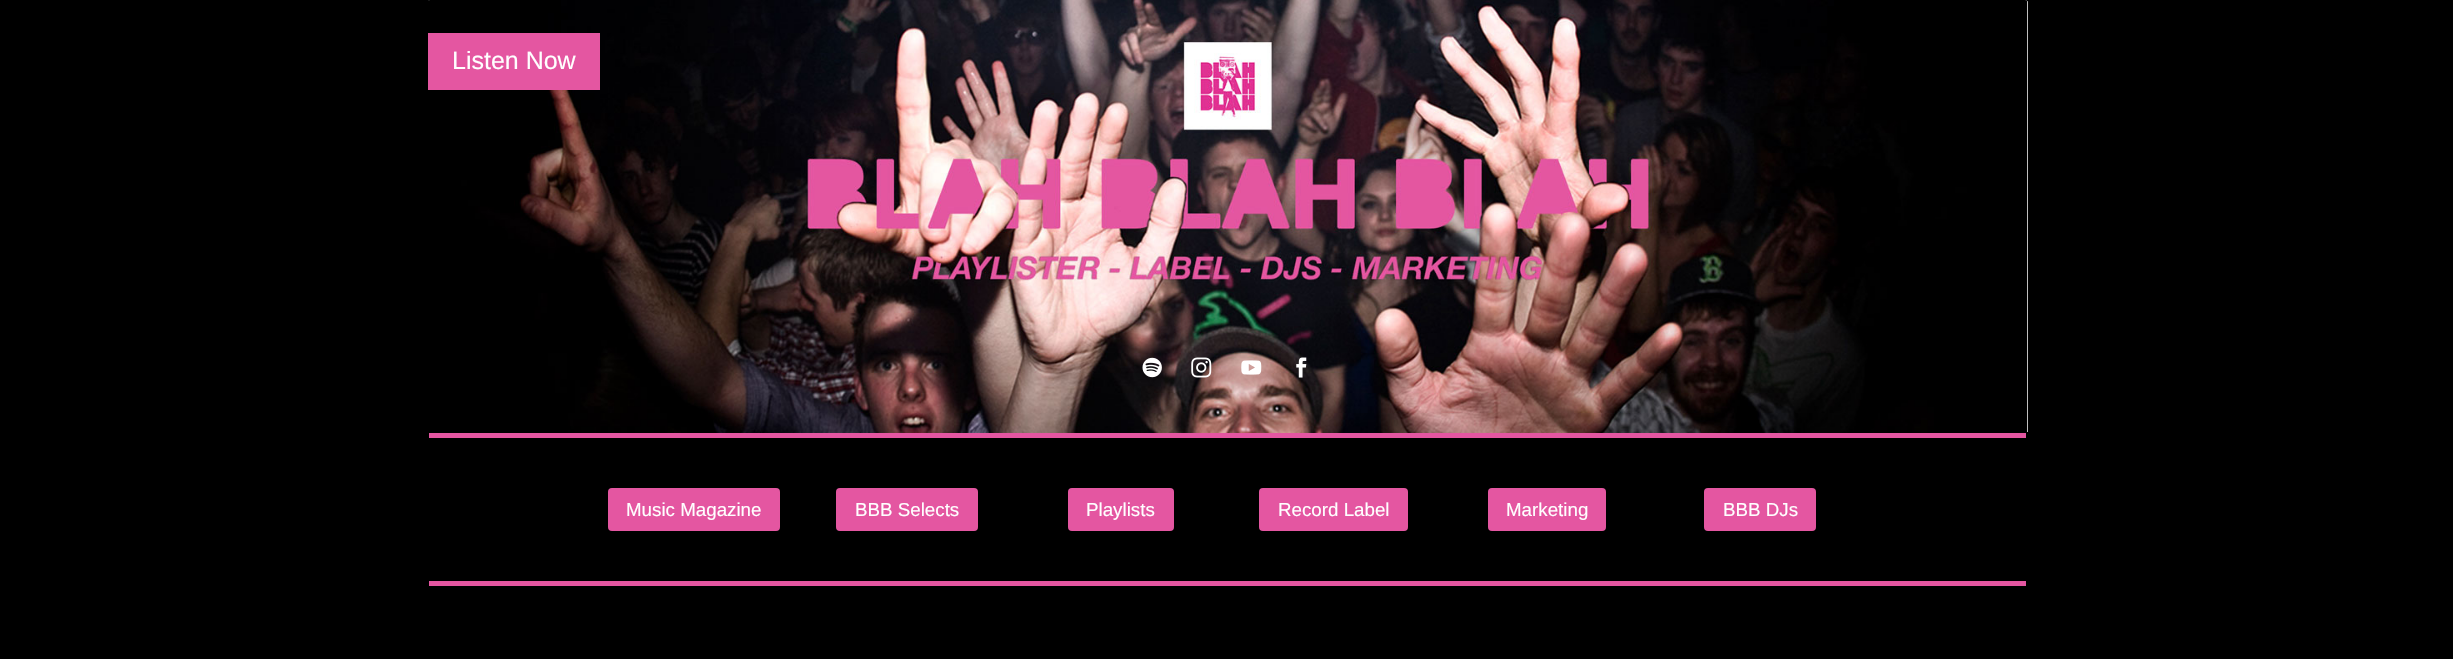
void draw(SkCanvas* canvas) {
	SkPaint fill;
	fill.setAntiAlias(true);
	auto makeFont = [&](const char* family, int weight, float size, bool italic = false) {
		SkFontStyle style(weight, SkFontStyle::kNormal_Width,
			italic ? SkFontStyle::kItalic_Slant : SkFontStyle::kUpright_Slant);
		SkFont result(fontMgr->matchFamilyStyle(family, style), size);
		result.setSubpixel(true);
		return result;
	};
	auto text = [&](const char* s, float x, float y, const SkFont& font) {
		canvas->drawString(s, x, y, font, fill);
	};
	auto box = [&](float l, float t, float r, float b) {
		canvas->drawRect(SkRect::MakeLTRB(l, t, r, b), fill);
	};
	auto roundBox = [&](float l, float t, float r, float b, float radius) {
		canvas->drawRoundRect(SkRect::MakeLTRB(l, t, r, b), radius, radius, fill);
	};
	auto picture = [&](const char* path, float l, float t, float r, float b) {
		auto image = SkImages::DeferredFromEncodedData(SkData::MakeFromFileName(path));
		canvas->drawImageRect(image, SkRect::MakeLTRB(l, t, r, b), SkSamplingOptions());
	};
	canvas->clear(0xFF000000);
	fill.setColor(0xFFFFFFFF);
	canvas->drawPath(SkPathBuilder().moveTo(430, 0).lineTo(2025, 0).cubicTo(2026, 0, 2028, 1, 2028, 2).lineTo(2028, 432).lineTo(428, 432).lineTo(428, 2).cubicTo(428, 1, 429, 0, 430, 0).close().detach(), fill);
	picture("image0.png", 428, 0, 2028, 438);
	fill.setColor(0xFFE456A1);
	box(429, 433, 2026, 438);
	box(428, 33, 600, 90);
	picture("image1.png", 1142, 357, 1162, 378);
	picture("image2.png", 1191, 357, 1212, 378);
	picture("image3.png", 1241, 360, 1262, 375);
	picture("image4.png", 1296, 357, 1307, 378);
	box(429, 581, 2026, 586);
	roundBox(608, 488, 780, 531, 4);
	roundBox(836, 488, 978, 531, 4);
	roundBox(1068, 488, 1174, 531, 4);
	roundBox(1259, 488, 1408, 531, 4);
	roundBox(1488, 488, 1606, 531, 4);
	roundBox(1704, 488, 1816, 531, 4);
	auto font1 = makeFont("Liberation Sans", 400, 25);
	fill.setColor(0xFFFFFFFF);
	text("Listen Now", 452, 69, font1);
	auto font2 = makeFont("Liberation Sans", 400, 18.75f);
	text("Music Magazine", 626, 516, font2);
	text("BBB Selects", 855, 516, font2);
	text("Playlists", 1086, 516, font2);
	text("Record Label", 1278, 516, font2);
	text("Marketing", 1506, 516, font2);
	text("BBB DJs", 1723, 516, font2);
}
